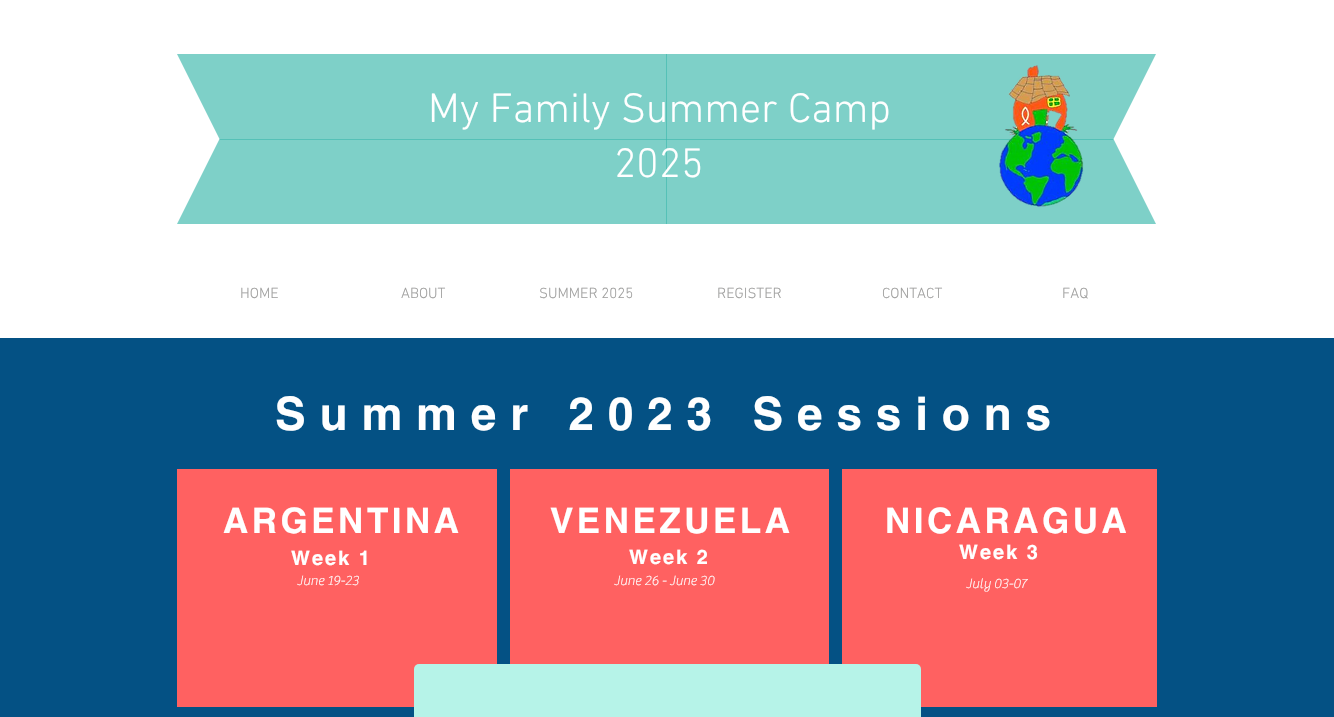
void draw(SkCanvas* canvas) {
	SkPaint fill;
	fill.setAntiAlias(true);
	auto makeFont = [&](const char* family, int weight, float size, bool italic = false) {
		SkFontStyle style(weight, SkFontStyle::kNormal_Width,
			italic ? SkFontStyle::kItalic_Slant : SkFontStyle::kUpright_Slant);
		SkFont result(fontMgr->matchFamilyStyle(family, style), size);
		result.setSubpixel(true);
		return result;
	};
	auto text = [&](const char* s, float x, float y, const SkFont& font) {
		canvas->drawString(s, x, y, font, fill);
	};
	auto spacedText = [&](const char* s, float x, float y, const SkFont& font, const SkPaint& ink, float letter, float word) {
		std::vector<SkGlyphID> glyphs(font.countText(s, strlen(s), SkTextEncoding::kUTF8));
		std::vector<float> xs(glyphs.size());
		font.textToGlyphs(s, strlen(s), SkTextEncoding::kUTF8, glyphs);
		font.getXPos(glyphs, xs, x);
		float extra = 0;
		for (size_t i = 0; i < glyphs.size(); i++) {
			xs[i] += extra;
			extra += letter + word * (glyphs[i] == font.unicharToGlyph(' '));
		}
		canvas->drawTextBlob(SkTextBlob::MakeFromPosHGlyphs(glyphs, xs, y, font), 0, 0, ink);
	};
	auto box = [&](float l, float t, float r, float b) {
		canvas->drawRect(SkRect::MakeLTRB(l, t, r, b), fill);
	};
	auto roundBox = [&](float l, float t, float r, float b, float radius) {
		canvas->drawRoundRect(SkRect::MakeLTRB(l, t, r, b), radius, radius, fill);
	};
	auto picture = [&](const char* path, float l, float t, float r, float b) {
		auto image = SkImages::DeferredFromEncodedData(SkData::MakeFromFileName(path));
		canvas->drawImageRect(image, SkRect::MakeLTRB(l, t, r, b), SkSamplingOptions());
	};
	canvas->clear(0xFFFFFFFF);
	canvas->save();
	canvas->clipRect(SkRect::MakeLTRB(177, 54, 667, 140));
	fill.setColor(0xFF7ED0C8);
	canvas->drawPath(SkPathBuilder().moveTo(177, 54).lineTo(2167, 54).lineTo(1167, 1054).lineTo(677, 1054).close().detach(), fill);
	canvas->restore();
	canvas->save();
	canvas->clipRect(SkRect::MakeLTRB(666, 54, 1156, 140));
	fill.setColor(0xAD41BAAE);
	canvas->drawPath(SkPathBuilder().moveTo(-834, 54).lineTo(1156, 54).lineTo(656, 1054).lineTo(166, 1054).close().detach(), fill);
	canvas->restore();
	canvas->save();
	canvas->clipRect(SkRect::MakeLTRB(177, 139, 667, 224));
	canvas->drawPath(SkPathBuilder().moveTo(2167, 224).lineTo(177, 224).lineTo(677, -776).lineTo(1167, -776).close().detach(), fill);
	canvas->restore();
	canvas->save();
	canvas->clipRect(SkRect::MakeLTRB(666, 139, 1156, 224));
	canvas->drawPath(SkPathBuilder().moveTo(1156, 224).lineTo(-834, 224).lineTo(166, -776).lineTo(656, -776).close().detach(), fill);
	canvas->restore();
	picture("image0.png", 999, 65, 1084, 207);
	fill.setColor(0xFF045184);
	box(0, 338, 1334, 717);
	fill.setColor(0xFFFF6161);
	box(177, 469, 497, 707);
	box(510, 469, 829, 664);
	box(842, 469, 1157, 707);
	fill.setColor(0xFFB6F3E8);
	roundBox(414, 664, 921, 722, 5);
	auto font1 = makeFont("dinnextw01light", 300, 42);
	fill.setColor(0xFFFFFFFF);
	text("My Family Summer Camp", 428, 122, font1);
	text("2025", 614, 177, font1);
	auto font2 = makeFont("dinnextw01light", 300, 15);
	fill.setColor(0xFFA0A09F);
	text("HOME", 240, 298, font2);
	text("ABOUT", 401, 298, font2);
	text("SUMMER 2025", 539, 298, font2);
	text("REGISTER", 717, 298, font2);
	text("CONTACT", 882, 298, font2);
	text("FAQ", 1062, 298, font2);
	auto font3 = makeFont("helvetica", 700, 46);
	fill.setColor(0xFFFFFFFF);
	spacedText("Summer 2023 Sessions", 275, 430, font3, fill, 13.8f, 0);
	auto font4 = makeFont("helvetica", 700, 35);
	spacedText("ARGENTINA", 223, 533, font4, fill, 3.5f, 0);
	auto font5 = makeFont("helvetica", 700, 20);
	spacedText("Week 1", 291, 565, font5, fill, 2, 0);
	auto font6 = makeFont("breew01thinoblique", 100, 14);
	text("June 19-23", 297, 585, font6);
	spacedText("VENEZUELA", 550, 533, font4, fill, 3.5f, 0);
	spacedText("Week 2", 629, 564, font5, fill, 2, 0);
	text("June 26 - June 30", 614, 585, font6);
	spacedText("NICARAGUA", 885, 533, font4, fill, 3.5f, 0);
	spacedText("Week 3", 959, 559, font5, fill, 2, 0);
	text("July 03-07", 966, 588, font6);
}
